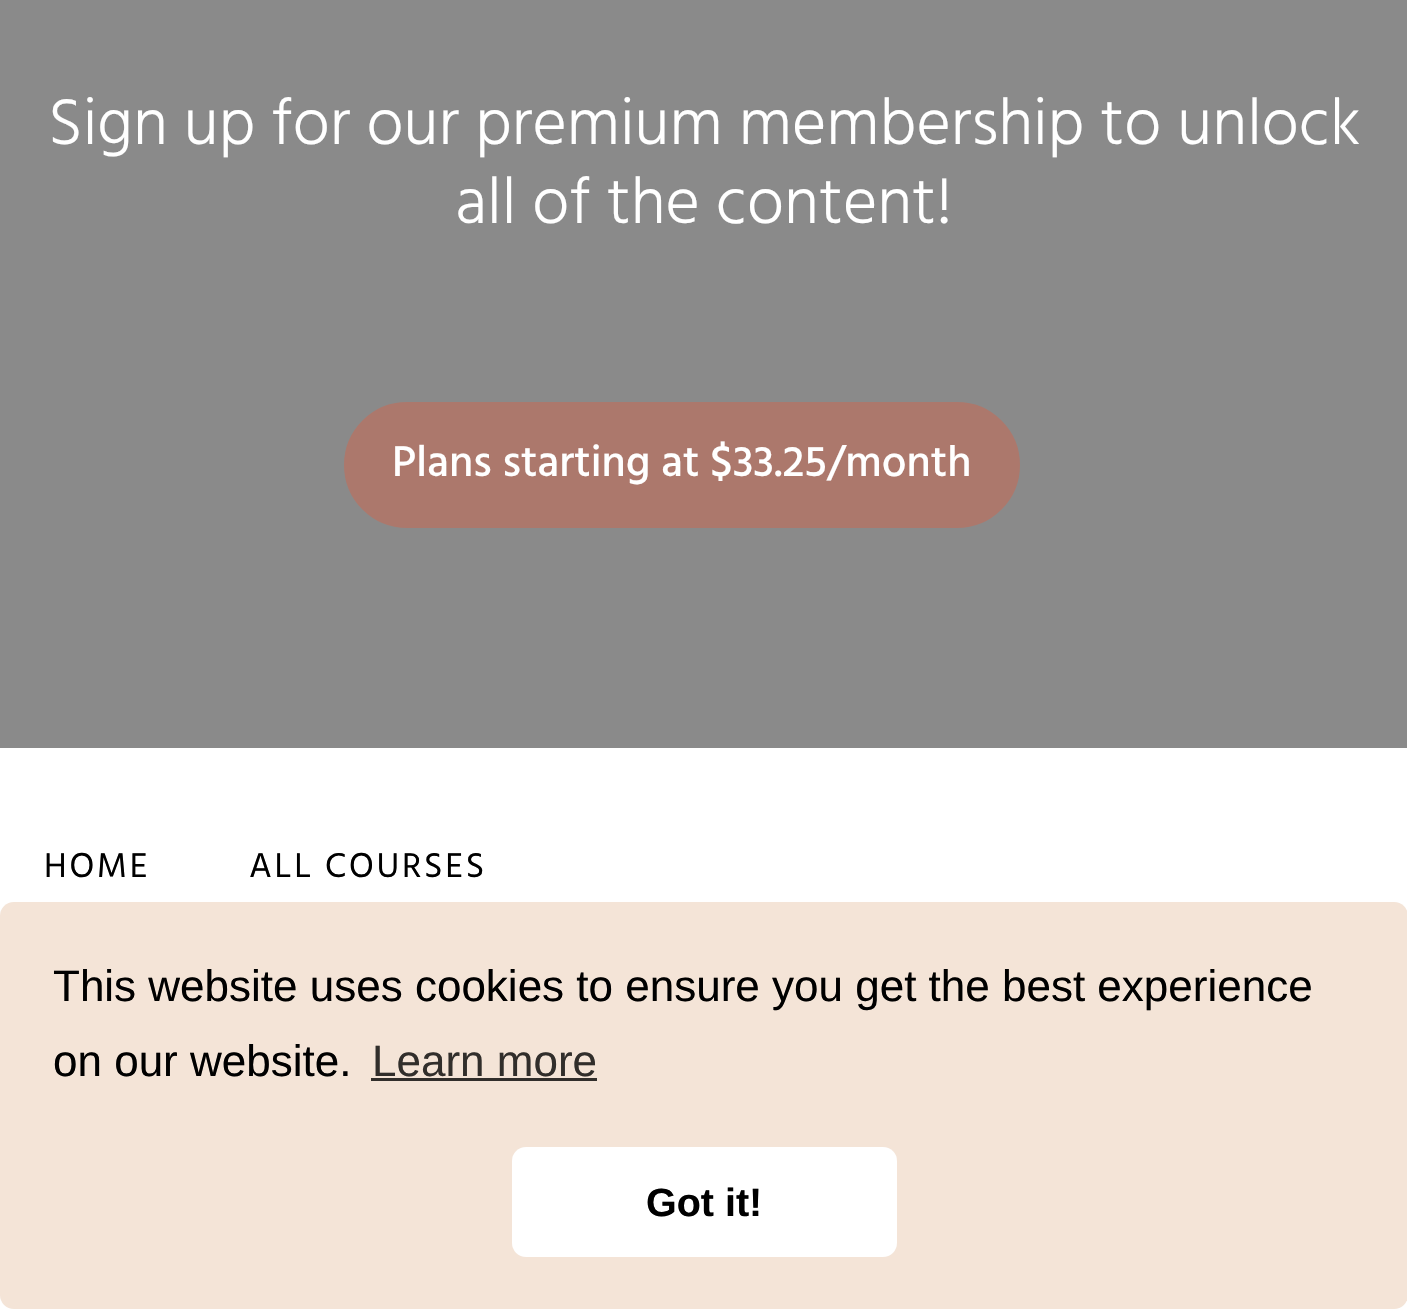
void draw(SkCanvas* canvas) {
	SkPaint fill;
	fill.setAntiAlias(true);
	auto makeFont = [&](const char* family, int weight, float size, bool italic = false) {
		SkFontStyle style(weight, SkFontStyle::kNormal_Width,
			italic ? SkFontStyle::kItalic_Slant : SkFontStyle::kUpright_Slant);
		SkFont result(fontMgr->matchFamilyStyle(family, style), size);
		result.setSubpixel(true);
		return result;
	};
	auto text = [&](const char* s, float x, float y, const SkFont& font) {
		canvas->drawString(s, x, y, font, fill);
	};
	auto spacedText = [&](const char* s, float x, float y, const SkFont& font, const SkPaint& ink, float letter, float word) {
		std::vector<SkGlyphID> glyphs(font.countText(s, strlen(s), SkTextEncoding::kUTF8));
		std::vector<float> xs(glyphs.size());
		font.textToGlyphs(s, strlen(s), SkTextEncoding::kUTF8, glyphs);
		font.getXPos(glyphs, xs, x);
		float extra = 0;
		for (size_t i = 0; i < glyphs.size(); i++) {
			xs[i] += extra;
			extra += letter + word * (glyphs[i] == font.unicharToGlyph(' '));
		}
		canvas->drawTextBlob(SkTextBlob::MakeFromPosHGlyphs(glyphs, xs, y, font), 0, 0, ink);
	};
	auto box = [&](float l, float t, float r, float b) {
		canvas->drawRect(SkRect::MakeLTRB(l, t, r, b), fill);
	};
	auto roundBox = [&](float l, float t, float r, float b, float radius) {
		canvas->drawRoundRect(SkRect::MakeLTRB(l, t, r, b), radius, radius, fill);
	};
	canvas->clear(0xFFFFFFFF);
	fill.setColor(0xFF8A8A8A);
	box(0, 0, 1407, 748);
	fill.setColor(0xFFAC786C);
	canvas->drawRoundRect(SkRect::MakeLTRB(347, 405, 1017, 525), 60, 60, fill);
	fill.setStyle(SkPaint::kStroke_Style);
	fill.setStrokeWidth(6);
	canvas->drawRoundRect(SkRect::MakeLTRB(347, 405, 1017, 525), 60, 60, fill);
	fill.setStyle(SkPaint::kFill_Style);
	fill.setColor(0xFFF4E4D7);
	roundBox(0, 902, 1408, 1309, 14);
	fill.setColor(0xFF312E2B);
	box(371, 1078, 597, 1081);
	fill.setColor(0xFFFFFFFF);
	roundBox(512, 1147, 897, 1257, 14);
	auto font1 = makeFont("Hind", 300, 66);
	text("Sign up for our premium membership to unlock", 48, 144, font1);
	text("all of the content!", 455, 223, font1);
	auto font2 = makeFont("Hind", 500, 44);
	text("Plans starting at $33.25/month", 392, 476, font2);
	auto font3 = makeFont("Hind", 400, 35.25f);
	fill.setColor(0xFF000000);
	spacedText("HOME", 44, 877, font3, fill, 2.75f, 0);
	spacedText("ALL COURSES", 249, 877, font3, fill, 2.75f, 0);
	auto font4 = makeFont("Liberation Sans", 400, 44);
	text("This website uses cookies to ensure you get the best experience", 53, 1001, font4);
	text("on our website.", 53, 1076, font4);
	fill.setColor(0xFF312E2B);
	text("Learn more", 372, 1076, font4);
	auto font5 = makeFont("Liberation Sans", 700, 39.5f);
	fill.setColor(0xFF000000);
	text("Got it!", 646, 1216, font5);
}
